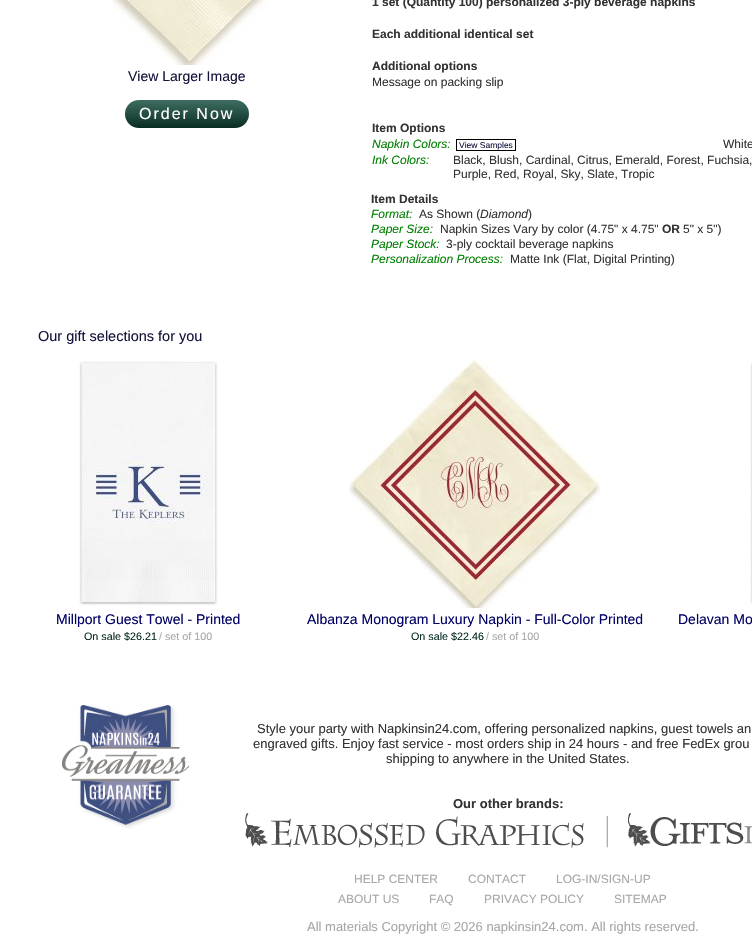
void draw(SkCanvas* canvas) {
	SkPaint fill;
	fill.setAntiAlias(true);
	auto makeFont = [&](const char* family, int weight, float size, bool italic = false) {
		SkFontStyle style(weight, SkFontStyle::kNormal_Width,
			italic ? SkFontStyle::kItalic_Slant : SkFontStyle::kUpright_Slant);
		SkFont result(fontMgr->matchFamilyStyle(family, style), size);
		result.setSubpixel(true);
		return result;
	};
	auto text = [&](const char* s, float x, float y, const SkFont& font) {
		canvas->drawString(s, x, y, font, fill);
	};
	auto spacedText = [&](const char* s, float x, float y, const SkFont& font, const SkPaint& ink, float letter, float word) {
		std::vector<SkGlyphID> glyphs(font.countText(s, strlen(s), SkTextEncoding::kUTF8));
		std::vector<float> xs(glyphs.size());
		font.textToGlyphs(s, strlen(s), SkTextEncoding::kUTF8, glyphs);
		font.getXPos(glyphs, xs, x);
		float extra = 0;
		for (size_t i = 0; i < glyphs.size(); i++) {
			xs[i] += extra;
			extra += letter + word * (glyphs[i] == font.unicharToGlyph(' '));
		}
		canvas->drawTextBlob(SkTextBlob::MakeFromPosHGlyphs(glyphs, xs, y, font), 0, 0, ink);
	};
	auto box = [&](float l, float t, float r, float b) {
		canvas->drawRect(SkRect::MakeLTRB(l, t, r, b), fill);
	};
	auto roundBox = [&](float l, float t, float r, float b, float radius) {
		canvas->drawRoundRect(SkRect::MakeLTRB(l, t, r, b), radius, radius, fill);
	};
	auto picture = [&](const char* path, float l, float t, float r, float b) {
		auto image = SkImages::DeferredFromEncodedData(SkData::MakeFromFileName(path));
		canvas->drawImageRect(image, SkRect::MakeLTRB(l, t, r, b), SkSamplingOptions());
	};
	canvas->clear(0xFFFFFFFF);
	picture("image0.png", 112, 0, 267, 65);
	{
		const SkColor colors[] = {0xFF3F6E61, 0xFF092C24};
		const float stops[] = {0, 1};
		const SkPoint ends[] = {{187, 100}, {187, 128}};
		fill.setShader(SkGradientShader::MakeLinear(ends, colors, stops, 2, SkTileMode::kClamp));
		fill.setAlpha(255);
	}
	roundBox(125, 100, 249, 128, 14);
	fill.setShader(nullptr);
	fill.setColor(0xFF000000);
	box(456, 139, 516, 140);
	box(456, 150, 512, 151);
	box(456, 139, 457, 151);
	box(515, 139, 516, 151);
	box(512, 150, 516, 151);
	picture("image1.png", 79, 361, 218, 605);
	picture("image2.png", 349, 360, 600, 608);
	picture("image3.png", 750, 362, 752, 605);
	picture("image4.png", 62, 705, 190, 829);
	picture("image5.png", 245, 813, 752, 848);
	auto font1 = makeFont("Liberation Sans", 400, 14);
	fill.setColor(0xFF13143A);
	text("View Larger Image", 128, 81, font1);
	auto font2 = makeFont("Liberation Sans", 400, 16);
	fill.setColor(0xFFFFFFFF);
	spacedText("Order Now", 139, 119, font2, fill, 2, 0);
	auto font3 = makeFont("Liberation Sans", 700, 12);
	fill.setColor(0xFF333333);
	text("1 set (Quantity 100) personalized 3-ply beverage napkins", 372, 6, font3);
	text("Each additional identical set", 372, 38, font3);
	text("Additional options", 372, 70, font3);
	auto font4 = makeFont("Liberation Sans", 400, 12);
	text("Message on packing slip", 372, 86, font4);
	text("Item Options", 372, 132, font3);
	auto font5 = makeFont("Liberation Sans", 400, 12, true);
	fill.setColor(0xFF008000);
	text("Napkin Colors:", 372, 148, font5);
	auto font6 = makeFont("Liberation Sans", 400, 8.5f);
	fill.setColor(0xFF13143A);
	text("View Samples", 459, 148, font6);
	fill.setColor(0xFF333333);
	text("White", 723, 148, font4);
	fill.setColor(0xFF008000);
	text("Ink Colors:", 372, 164, font5);
	fill.setColor(0xFF333333);
	text("Black, Blush, Cardinal, Citrus, Emerald, Forest, Fuchsia,", 453, 164, font4);
	text("Purple, Red, Royal, Sky, Slate, Tropic", 453, 178, font4);
	text("Item Details", 371, 203, font3);
	fill.setColor(0xFF008000);
	text("Format:", 371, 218, font5);
	fill.setColor(0xFF333333);
	text("As Shown (", 419, 218, font4);
	text("Diamond", 480, 218, font5);
	text(")", 528, 218, font4);
	fill.setColor(0xFF008000);
	text("Paper Size:", 371, 233, font5);
	fill.setColor(0xFF333333);
	text("Napkin Sizes Vary by color (4.75\" x 4.75\"", 440, 233, font4);
	text("OR", 662, 233, font3);
	text("5\" x 5\")", 683, 233, font4);
	fill.setColor(0xFF008000);
	text("Paper Stock:", 371, 248, font5);
	fill.setColor(0xFF333333);
	text("3-ply cocktail beverage napkins", 446, 248, font4);
	fill.setColor(0xFF008000);
	text("Personalization Process:", 371, 263, font5);
	fill.setColor(0xFF333333);
	text("Matte Ink (Flat, Digital Printing)", 510, 263, font4);
	auto font7 = makeFont("Liberation Sans", 400, 14.5f);
	fill.setColor(0xFF13143A);
	text("Our gift selections for you", 38, 341, font7);
	fill.setColor(0xFF000066);
	text("Millport Guest Towel - Printed", 56, 624, font1);
	auto font8 = makeFont("Liberation Sans", 400, 10.75f);
	fill.setColor(0xFF092C24);
	text("On sale $26.21", 84, 640, font8);
	fill.setColor(0xFFA6A8A8);
	text("/ set of 100", 159, 640, font8);
	fill.setColor(0xFF000066);
	text("Albanza Monogram Luxury Napkin - Full-Color Printed", 307, 624, font1);
	fill.setColor(0xFF092C24);
	text("On sale $22.46", 411, 640, font8);
	fill.setColor(0xFFA6A8A8);
	text("/ set of 100", 486, 640, font8);
	fill.setColor(0xFF000066);
	text("Delavan Mo", 678, 624, font1);
	auto font9 = makeFont("Liberation Sans", 400, 13);
	fill.setColor(0xFF333333);
	text("Style your party with Napkinsin24.com, offering personalized napkins, guest towels an", 257, 733, font9);
	text("engraved gifts. Enjoy fast service - most orders ship in 24 hours - and free FedEx grou", 253, 748, font9);
	text("shipping to anywhere in the United States.", 386, 763, font9);
	auto font10 = makeFont("Liberation Sans", 700, 13);
	text("Our other brands:", 453, 808, font10);
	fill.setColor(0xFFA6A8A8);
	text("HELP CENTER", 354, 883, font4);
	text("CONTACT", 468, 883, font4);
	text("LOG-IN/SIGN-UP", 556, 883, font4);
	text("ABOUT US", 338, 903, font4);
	text("FAQ", 429, 903, font4);
	text("PRIVACY POLICY", 484, 903, font4);
	text("SITEMAP", 614, 903, font4);
	text("All materials Copyright © 2026 napkinsin24.com. All rights reserved.", 307, 931, font9);
}
